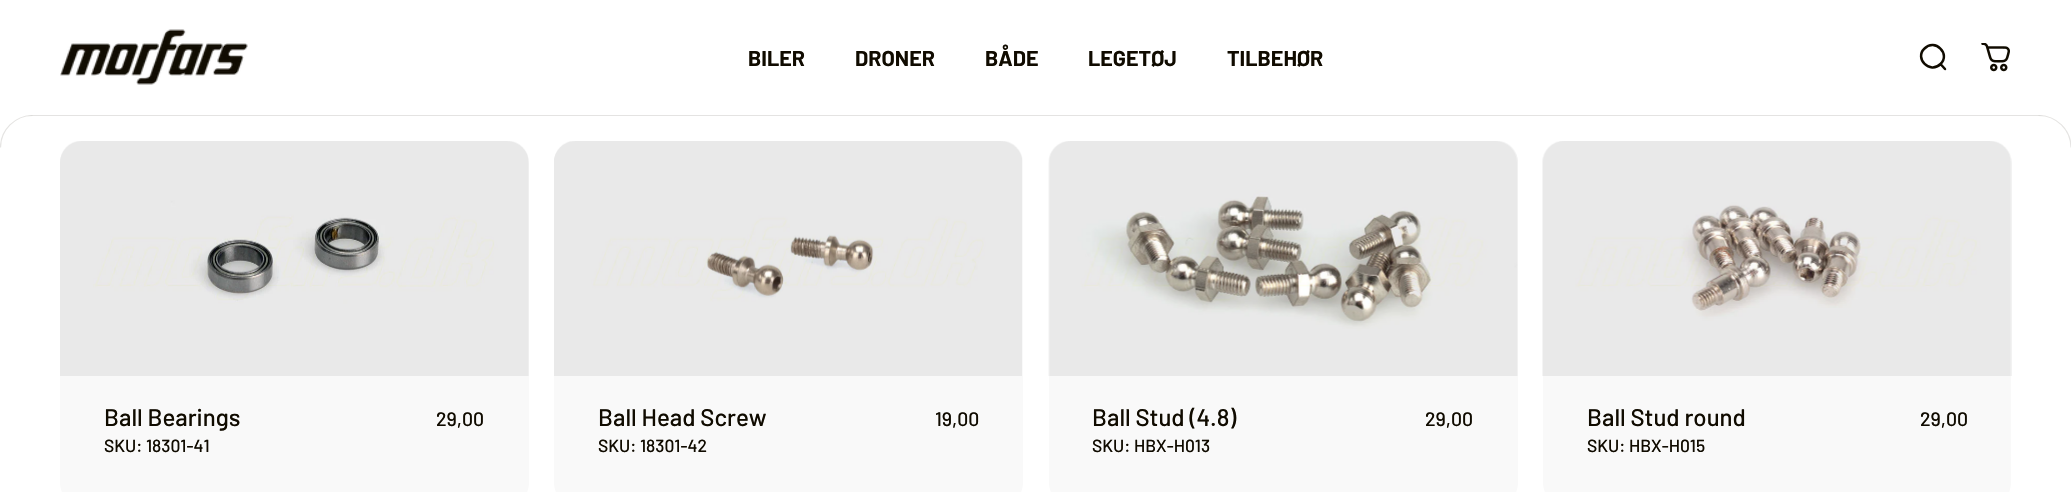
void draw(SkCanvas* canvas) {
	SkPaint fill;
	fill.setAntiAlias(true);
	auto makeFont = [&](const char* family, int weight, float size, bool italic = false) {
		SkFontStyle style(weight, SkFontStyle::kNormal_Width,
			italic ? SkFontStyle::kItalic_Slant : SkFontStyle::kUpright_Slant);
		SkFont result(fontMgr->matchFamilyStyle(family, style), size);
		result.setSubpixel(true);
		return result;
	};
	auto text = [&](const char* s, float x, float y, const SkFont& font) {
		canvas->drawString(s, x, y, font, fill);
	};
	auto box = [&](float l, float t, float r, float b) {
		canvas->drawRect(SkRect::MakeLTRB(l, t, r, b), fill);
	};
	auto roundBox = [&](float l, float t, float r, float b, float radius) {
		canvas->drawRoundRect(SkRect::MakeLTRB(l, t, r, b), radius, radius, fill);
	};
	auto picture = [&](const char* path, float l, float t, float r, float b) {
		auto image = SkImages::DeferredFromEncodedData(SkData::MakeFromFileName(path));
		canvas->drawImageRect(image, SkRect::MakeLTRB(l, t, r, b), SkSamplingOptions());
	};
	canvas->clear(0xFFFFFFFF);
	picture("image0.png", 60, 29, 248, 85);
	fill.setStyle(SkPaint::kStroke_Style);
	fill.setStrokeWidth(2.5f);
	fill.setStrokeCap(SkPaint::kRound_Cap);
	fill.setColor(0xFF100B00);
	canvas->drawPath(SkPathBuilder().moveTo(1945, 69).lineTo(1940.5f, 64).moveTo(1940.5f, 64).cubicTo(1951, 54, 1935, 38, 1924.5f, 48.5f).cubicTo(1914, 58.5f, 1930, 74.5f, 1940.5f, 64).close().detach(), fill);
	picture("image1.png", 1981, 43, 2010, 72);
	fill.setStyle(SkPaint::kFill_Style);
	fill.setColor(0xFFE4E3E2);
	box(27, 115, 2044, 116);
	fill.setColor(0xFFFFFFFF);
	canvas->drawPath(SkPathBuilder(SkPathFillType::kEvenOdd).moveTo(32.5f, 115).lineTo(0, 115).lineTo(0, 147.5f).lineTo(0.5f, 147.5f).cubicTo(0.5f, 130, 15, 115.5f, 32.5f, 115.5f).close().detach(), fill);
	fill.setStyle(SkPaint::kStroke_Style);
	fill.setStrokeWidth(1.2f);
	fill.setStrokeCap(SkPaint::kButt_Cap);
	fill.setColor(0x1C100B00);
	canvas->drawPath(SkPathBuilder().moveTo(0.5f, 147.5f).cubicTo(0.5f, 130, 15, 115.5f, 32.5f, 115.5f).detach(), fill);
	fill.setStyle(SkPaint::kFill_Style);
	fill.setColor(0xFFFFFFFF);
	canvas->drawPath(SkPathBuilder(SkPathFillType::kEvenOdd).moveTo(2038.5f, 115).lineTo(2071, 115).lineTo(2071, 147.5f).cubicTo(2071, 130, 2056.5f, 115.5f, 2038.5f, 115.5f).close().detach(), fill);
	fill.setStyle(SkPaint::kStroke_Style);
	fill.setColor(0x1C100B00);
	canvas->drawPath(SkPathBuilder().moveTo(2071, 147.5f).cubicTo(2071, 130, 2056.5f, 115.5f, 2038.5f, 115.5f).detach(), fill);
	fill.setStyle(SkPaint::kFill_Style);
	fill.setColor(0xFFF9F9F9);
	roundBox(60, 141, 529, 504, 21);
	picture("image2.png", 60, 141, 529, 376);
	roundBox(554, 141, 1023, 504, 21);
	picture("image3.png", 554, 141, 1022, 376);
	roundBox(1049, 141, 1518, 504, 21);
	picture("image4.png", 1048, 141, 1518, 376);
	roundBox(1543, 141, 2011, 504, 21);
	picture("image5.png", 1542, 141, 2012, 376);
	auto font1 = makeFont("Barlow", 700, 21.5f);
	fill.setColor(0xFF100B00);
	text("BILER", 748, 66, font1);
	text("DRONER", 855, 66, font1);
	text("BÅDE", 985, 66, font1);
	text("LEGETØJ", 1088, 66, font1);
	text("TILBEHØR", 1227, 66, font1);
	auto font2 = makeFont("Barlow", 500, 24);
	text("Ball Bearings", 104, 426, font2);
	auto font3 = makeFont("Barlow", 500, 17.5f);
	text("SKU: 18301-41", 104, 452, font3);
	auto font4 = makeFont("Barlow", 500, 19.5f);
	text("29,00", 436, 426, font4);
	text("Ball Head Screw", 598, 426, font2);
	text("SKU: 18301-42", 598, 452, font3);
	text("19,00", 935, 426, font4);
	text("Ball Stud (4.8)", 1092, 426, font2);
	text("SKU: HBX-H013", 1092, 452, font3);
	text("29,00", 1425, 426, font4);
	text("Ball Stud round", 1587, 426, font2);
	text("SKU: HBX-H015", 1587, 452, font3);
	text("29,00", 1920, 426, font4);
}
